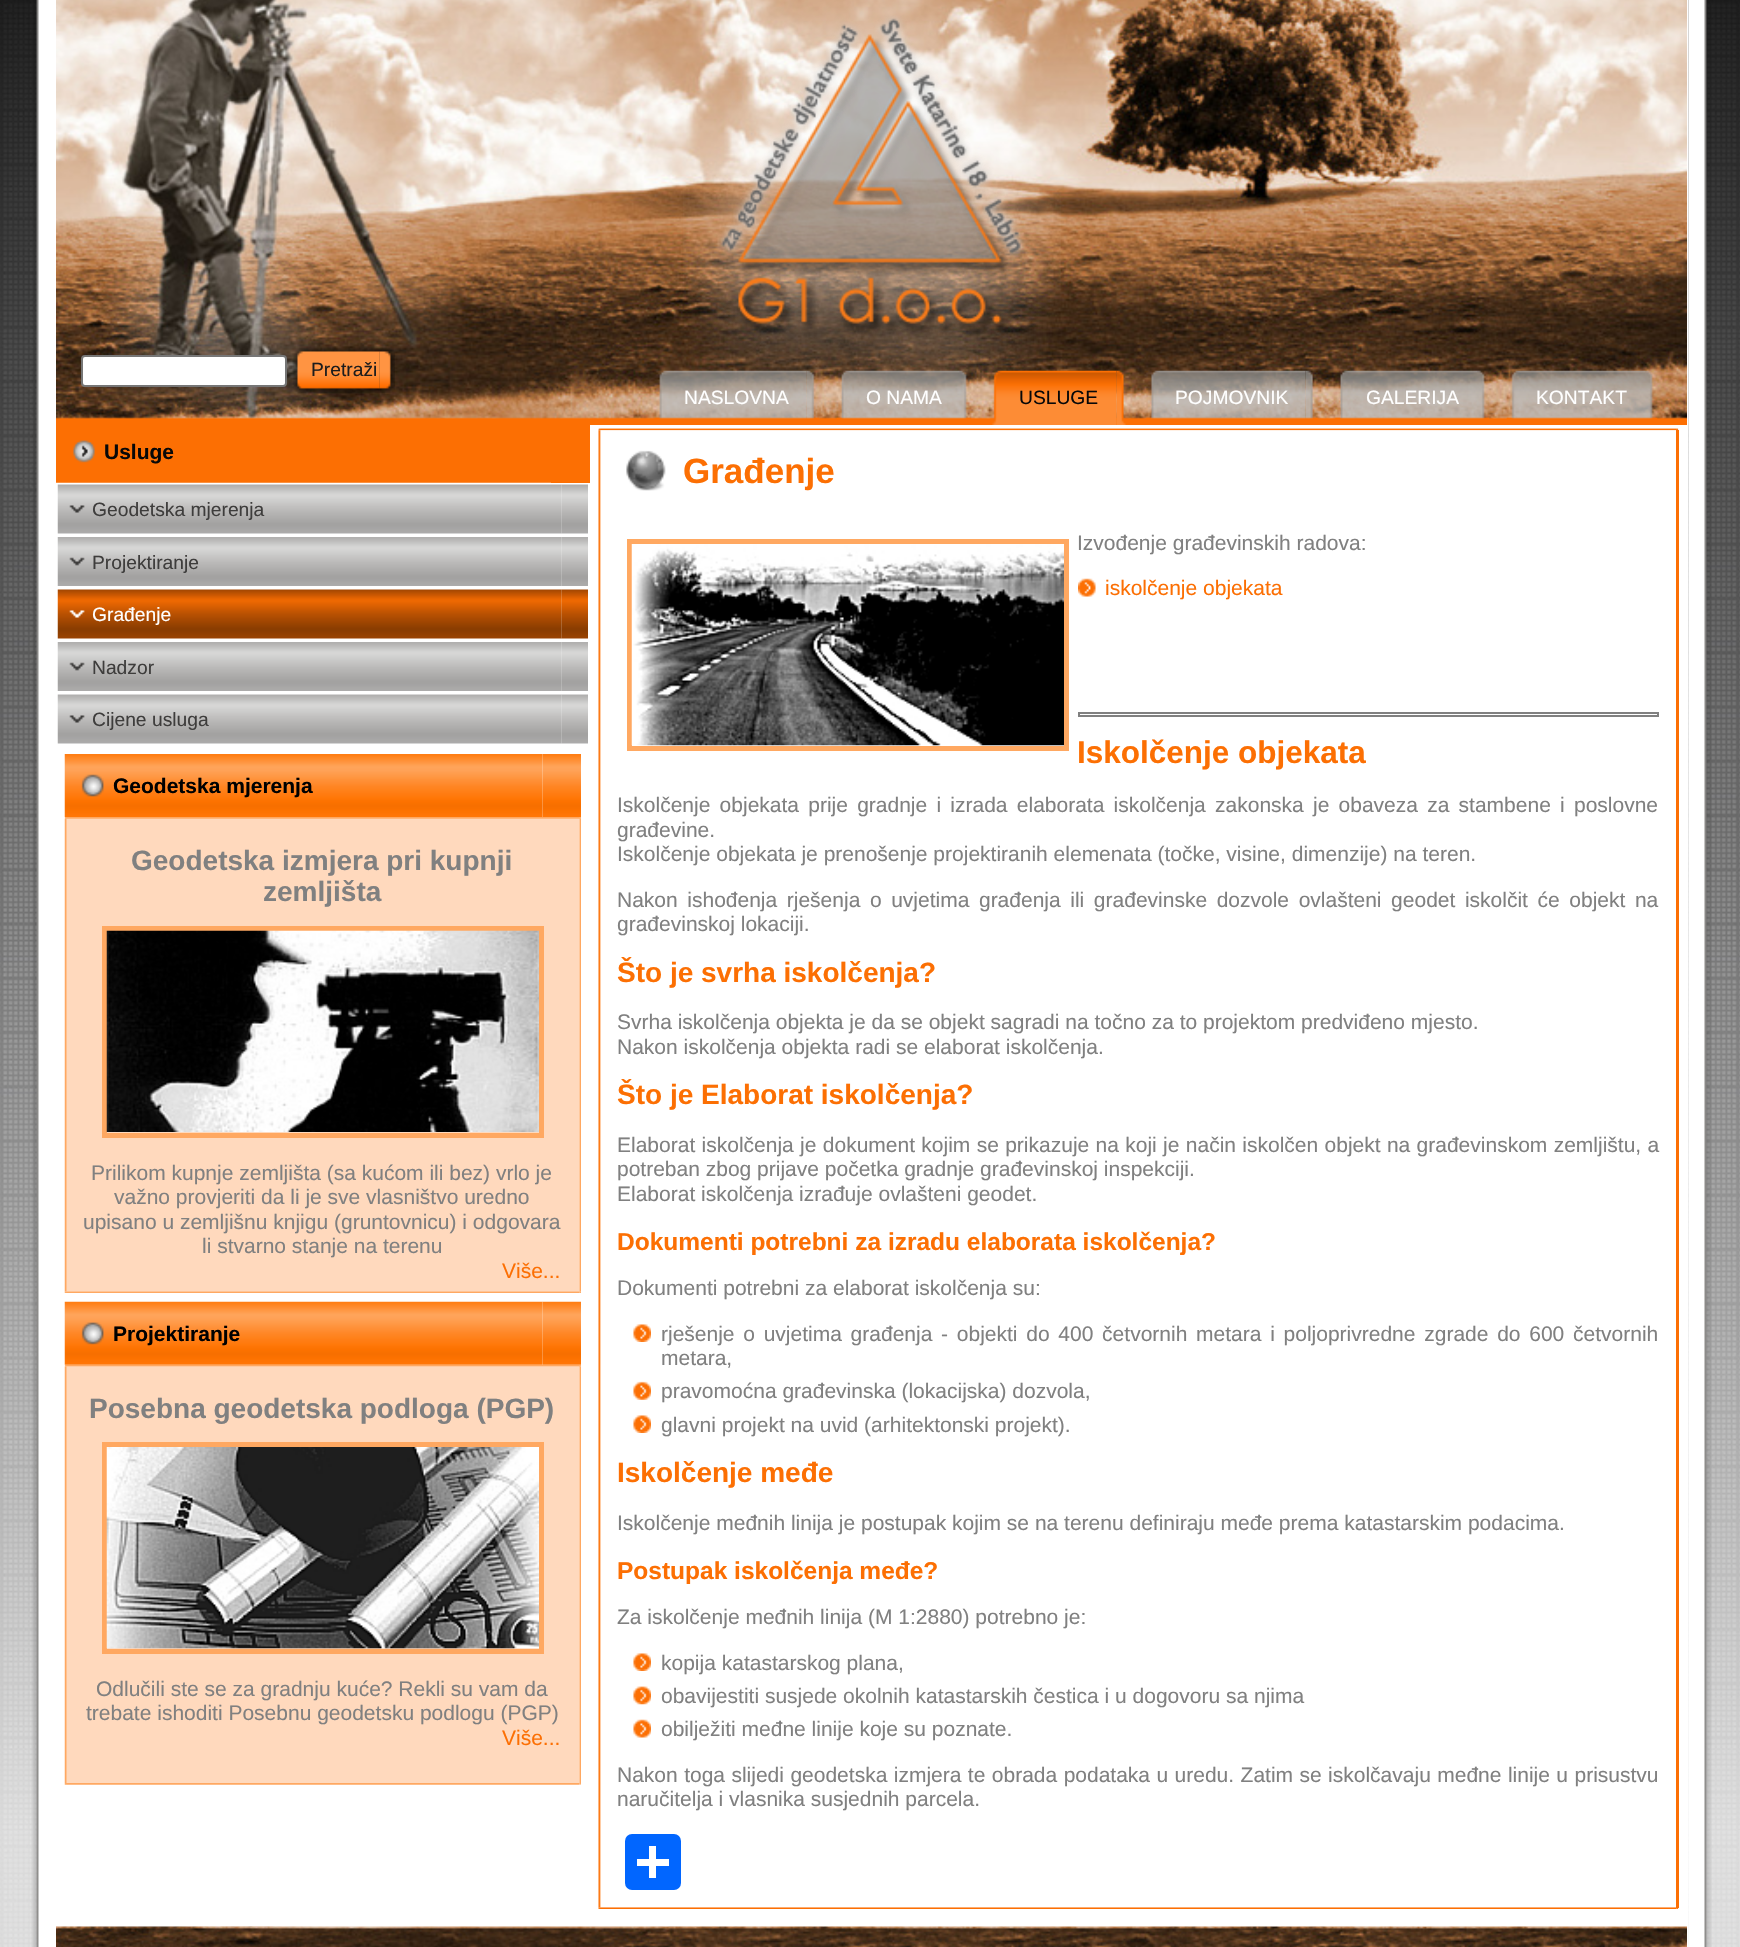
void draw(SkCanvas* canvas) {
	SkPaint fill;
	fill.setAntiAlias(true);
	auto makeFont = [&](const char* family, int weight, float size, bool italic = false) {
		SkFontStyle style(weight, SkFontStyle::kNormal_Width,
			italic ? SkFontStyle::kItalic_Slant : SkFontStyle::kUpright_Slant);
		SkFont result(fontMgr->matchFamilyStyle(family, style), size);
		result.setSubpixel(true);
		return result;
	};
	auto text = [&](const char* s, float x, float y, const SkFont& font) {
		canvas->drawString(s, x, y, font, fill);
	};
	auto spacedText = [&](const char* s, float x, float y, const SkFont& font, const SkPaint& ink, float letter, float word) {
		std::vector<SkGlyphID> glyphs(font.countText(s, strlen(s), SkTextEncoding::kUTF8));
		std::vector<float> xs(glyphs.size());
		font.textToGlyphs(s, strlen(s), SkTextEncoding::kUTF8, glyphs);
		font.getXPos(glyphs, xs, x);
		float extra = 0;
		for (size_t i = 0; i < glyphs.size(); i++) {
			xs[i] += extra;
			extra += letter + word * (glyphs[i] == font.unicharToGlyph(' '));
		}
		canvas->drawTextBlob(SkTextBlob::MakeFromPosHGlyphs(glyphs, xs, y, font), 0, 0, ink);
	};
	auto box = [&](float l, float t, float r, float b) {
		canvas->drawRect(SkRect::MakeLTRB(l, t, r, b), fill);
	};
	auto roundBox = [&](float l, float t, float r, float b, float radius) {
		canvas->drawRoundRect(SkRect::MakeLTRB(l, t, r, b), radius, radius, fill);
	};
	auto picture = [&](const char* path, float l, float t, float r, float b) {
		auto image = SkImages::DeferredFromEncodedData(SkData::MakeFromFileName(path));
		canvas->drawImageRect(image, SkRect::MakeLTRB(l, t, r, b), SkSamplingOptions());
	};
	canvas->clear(0xFFDEDEDE);
	picture("image0.png", 0, 1830, 1739, 1947);
	picture("image1.png", 0, 0, 1740, 1830);
	picture("image2.png", 31, 0, 1689, 1947);
	picture("image3.png", 1688, 0, 1712, 1947);
	picture("image4.png", 56, 0, 1687, 419);
	picture("image5.png", 683, 0, 1061, 383);
	fill.setColor(0xFFFFFFFF);
	canvas->drawRoundRect(SkRect::MakeLTRB(82, 356, 286, 386), 3, 3, fill);
	fill.setStyle(SkPaint::kStroke_Style);
	fill.setStrokeWidth(2);
	fill.setColor(0xFF767676);
	canvas->drawRoundRect(SkRect::MakeLTRB(82, 356, 286, 386), 3, 3, fill);
	picture("image6.png", 293, 346, 380, 394);
	picture("image7.png", 379, 347, 395, 393);
	picture("image20.png", 56, 417, 1687, 425);
	picture("image8.png", 654, 370, 807, 419);
	picture("image9.png", 806, 370, 819, 419);
	picture("image10.png", 836, 370, 959, 419);
	picture("image11.png", 959, 370, 972, 419);
	picture("image12.png", 992, 370, 1117, 425);
	picture("image13.png", 1116, 370, 1126, 425);
	picture("image14.png", 1146, 370, 1306, 419);
	picture("image15.png", 1305, 370, 1318, 419);
	picture("image16.png", 1335, 370, 1477, 419);
	picture("image17.png", 1477, 370, 1489, 419);
	picture("image18.png", 1506, 370, 1645, 419);
	picture("image19.png", 1645, 370, 1658, 419);
	picture("image21.png", 56, 425, 551, 483);
	fill.setStyle(SkPaint::kFill_Style);
	fill.setColor(0xFFFC6F03);
	box(551, 425, 590, 483);
	picture("image22.png", 57, 484, 562, 534);
	picture("image23.png", 561, 484, 588, 534);
	picture("image24.png", 57, 537, 562, 586);
	picture("image25.png", 561, 537, 588, 586);
	picture("image26.png", 57, 589, 562, 639);
	picture("image27.png", 561, 589, 588, 639);
	picture("image24.png", 57, 642, 562, 691);
	picture("image25.png", 561, 642, 588, 691);
	picture("image22.png", 57, 694, 562, 744);
	picture("image23.png", 561, 694, 588, 744);
	picture("image28.png", 64, 754, 543, 817);
	picture("image29.png", 542, 754, 581, 817);
	picture("image30.png", 64, 817, 580, 1293);
	picture("image31.png", 64, 817, 580, 819);
	picture("image32.png", 64, 818, 580, 1292);
	fill.setStyle(SkPaint::kStroke_Style);
	fill.setStrokeWidth(5);
	fill.setColor(0xFFFFA861);
	canvas->drawRect(SkRect::MakeLTRB(104.5f, 928.5f, 541.5f, 1135.5f), fill);
	picture("image33.png", 106, 930, 539, 1132);
	picture("image34.png", 579, 818, 581, 1292);
	picture("image35.png", 579, 817, 581, 1293);
	picture("image36.png", 579, 817, 581, 819);
	picture("image37.png", 64, 1301, 543, 1365);
	picture("image38.png", 542, 1301, 581, 1365);
	picture("image39.png", 64, 1365, 580, 1785);
	picture("image40.png", 64, 1365, 580, 1367);
	picture("image41.png", 64, 1366, 580, 1783);
	canvas->drawRect(SkRect::MakeLTRB(104.5f, 1444.5f, 541.5f, 1651.5f), fill);
	picture("image42.png", 106, 1447, 539, 1649);
	picture("image43.png", 579, 1366, 581, 1783);
	picture("image44.png", 579, 1365, 581, 1785);
	picture("image45.png", 579, 1365, 581, 1367);
	picture("image46.png", 598, 428, 1677, 1909);
	picture("image47.png", 598, 428, 1677, 431);
	fill.setStyle(SkPaint::kFill_Style);
	fill.setColor(0xFFFC6F03);
	box(1676, 430, 1679, 1908);
	picture("image48.png", 1676, 428, 1679, 1909);
	picture("image49.png", 1676, 428, 1679, 430);
	picture("image50.png", 598, 430, 1676, 1908);
	picture("image51.png", 626, 450, 666, 491);
	fill.setStyle(SkPaint::kStroke_Style);
	fill.setColor(0xFFFFA861);
	canvas->drawRect(SkRect::MakeLTRB(629.5f, 541.5f, 1066.5f, 748.5f), fill);
	picture("image52.png", 631, 544, 1064, 746);
	picture("image53.png", 1078, 578, 1096, 597);
	fill.setStrokeWidth(2);
	fill.setColor(0xFF808080);
	canvas->drawRect(SkRect::MakeLTRB(1079, 713, 1658, 716), fill);
	picture("image54.png", 633, 1324, 651, 1342);
	picture("image55.png", 633, 1381, 651, 1400);
	picture("image54.png", 633, 1415, 651, 1433);
	picture("image54.png", 633, 1653, 651, 1671);
	picture("image56.png", 633, 1686, 651, 1705);
	picture("image57.png", 633, 1719, 651, 1738);
	fill.setStyle(SkPaint::kFill_Style);
	fill.setColor(0xFF0166FF);
	roundBox(625, 1834, 681, 1890, 7);
	fill.setColor(0xFFFFFFFF);
	box(649, 1846, 656, 1878);
	box(637, 1859, 669, 1866);
	picture("image58.png", 56, 1926, 1687, 1947);
	auto font1 = makeFont("Liberation Sans", 400, 19.25f);
	fill.setColor(0xFF1C1C1C);
	text("Pretraži", 311, 376, font1);
	fill.setColor(0xFFFFFFFF);
	text("NASLOVNA", 684, 404, font1);
	text("O NAMA", 866, 404, font1);
	fill.setColor(0xFF080808);
	text("USLUGE", 1019, 404, font1);
	fill.setColor(0xFFFFFFFF);
	text("POJMOVNIK", 1175, 404, font1);
	text("GALERIJA", 1366, 404, font1);
	text("KONTAKT", 1536, 404, font1);
	auto font2 = makeFont("Liberation Sans", 700, 21);
	fill.setColor(0xFF080808);
	text("Usluge", 104, 459, font2);
	fill.setColor(0xFF3E3D3C);
	text("Geodetska mjerenja", 92, 516, font1);
	text("Projektiranje", 92, 569, font1);
	fill.setColor(0xFFFFFFFF);
	text("Građenje", 92, 621, font1);
	fill.setColor(0xFF3E3D3C);
	text("Nadzor", 92, 674, font1);
	text("Cijene usluga", 92, 726, font1);
	fill.setColor(0xFF000000);
	text("Geodetska mjerenja", 113, 793, font2);
	auto font3 = makeFont("Liberation Sans", 700, 28);
	fill.setColor(0xFF808080);
	text("Geodetska izmjera pri kupnji", 131, 870, font3);
	text("zemljišta", 263, 901, font3);
	auto font4 = makeFont("Liberation Sans", 400, 21);
	text("Prilikom kupnje zemljišta (sa kućom ili bez) vrlo je", 91, 1180, font4);
	text("važno provjeriti da li je sve vlasništvo uredno", 114, 1204, font4);
	text("upisano u zemljišnu knjigu (gruntovnicu) i odgovara", 83, 1229, font4);
	text("li stvarno stanje na terenu", 202, 1253, font4);
	fill.setColor(0xFFFC6F03);
	text("Više...", 502, 1278, font4);
	fill.setColor(0xFF000000);
	text("Projektiranje", 113, 1341, font2);
	fill.setColor(0xFF808080);
	text("Posebna geodetska podloga (PGP)", 89, 1418, font3);
	text("Odlučili ste se za gradnju kuće? Rekli su vam da", 96, 1696, font4);
	text("trebate ishoditi Posebnu geodetsku podlogu (PGP)", 86, 1720, font4);
	fill.setColor(0xFFFC6F03);
	text("Više...", 502, 1745, font4);
	auto font5 = makeFont("Liberation Sans", 700, 35);
	text("Građenje", 683, 483, font5);
	fill.setColor(0xFF808080);
	text("Izvođenje građevinskih radova:", 1077, 550, font4);
	fill.setColor(0xFFFC6F03);
	text("iskolčenje objekata", 1105, 595, font4);
	auto font6 = makeFont("Liberation Sans", 700, 31.5f);
	text("Iskolčenje objekata", 1077, 763, font6);
	fill.setColor(0xFF808080);
	spacedText("Iskolčenje objekata prije gradnje i izrada elaborata iskolčenja zakonska je obaveza za stambene i poslovne", 617, 812, font4, fill, 0, 3.4f);
	text("građevine.", 617, 837, font4);
	text("Iskolčenje objekata je prenošenje projektiranih elemenata (točke, visine, dimenzije) na teren.", 617, 861, font4);
	spacedText("Nakon ishođenja rješenja o uvjetima građenja ili građevinske dozvole ovlašteni geodet iskolčit će objekt na", 617, 907, font4, fill, 0, 3.75f);
	text("građevinskoj lokaciji.", 617, 931, font4);
	fill.setColor(0xFFFC6F03);
	text("Što je svrha iskolčenja?", 617, 982, font3);
	fill.setColor(0xFF808080);
	text("Svrha iskolčenja objekta je da se objekt sagradi na točno za to projektom predviđeno mjesto.", 617, 1029, font4);
	text("Nakon iskolčenja objekta radi se elaborat iskolčenja.", 617, 1054, font4);
	fill.setColor(0xFFFC6F03);
	text("Što je Elaborat iskolčenja?", 617, 1104, font3);
	fill.setColor(0xFF808080);
	spacedText("Elaborat iskolčenja je dokument kojim se prikazuje na koji je način iskolčen objekt na građevinskom zemljištu, a", 617, 1152, font4, fill, 0, 0.5f);
	text("potreban zbog prijave početka gradnje građevinskoj inspekciji.", 617, 1176, font4);
	text("Elaborat iskolčenja izrađuje ovlašteni geodet.", 617, 1201, font4);
	auto font7 = makeFont("Liberation Sans", 700, 24.5f);
	fill.setColor(0xFFFC6F03);
	text("Dokumenti potrebni za izradu elaborata iskolčenja?", 617, 1250, font7);
	fill.setColor(0xFF808080);
	text("Dokumenti potrebni za elaborat iskolčenja su:", 617, 1295, font4);
	spacedText("rješenje o uvjetima građenja - objekti do 400 četvornih metara i poljoprivredne zgrade do 600 četvornih", 661, 1341, font4, fill, 0, 2.9f);
	text("metara,", 661, 1365, font4);
	text("pravomoćna građevinska (lokacijska) dozvola,", 661, 1398, font4);
	text("glavni projekt na uvid (arhitektonski projekt).", 661, 1432, font4);
	fill.setColor(0xFFFC6F03);
	text("Iskolčenje međe", 617, 1482, font3);
	fill.setColor(0xFF808080);
	text("Iskolčenje međnih linija je postupak kojim se na terenu definiraju međe prema katastarskim podacima.", 617, 1530, font4);
	fill.setColor(0xFFFC6F03);
	text("Postupak iskolčenja međe?", 617, 1579, font7);
	fill.setColor(0xFF808080);
	text("Za iskolčenje međnih linija (M 1:2880) potrebno je:", 617, 1624, font4);
	text("kopija katastarskog plana,", 661, 1670, font4);
	text("obavijestiti susjede okolnih katastarskih čestica i u dogovoru sa njima", 661, 1703, font4);
	text("obilježiti međne linije koje su poznate.", 661, 1736, font4);
	spacedText("Nakon toga slijedi geodetska izmjera te obrada podataka u uredu. Zatim se iskolčavaju međne linije u prisustvu", 617, 1782, font4, fill, 0, 0.6f);
	text("naručitelja i vlasnika susjednih parcela.", 617, 1806, font4);
}
